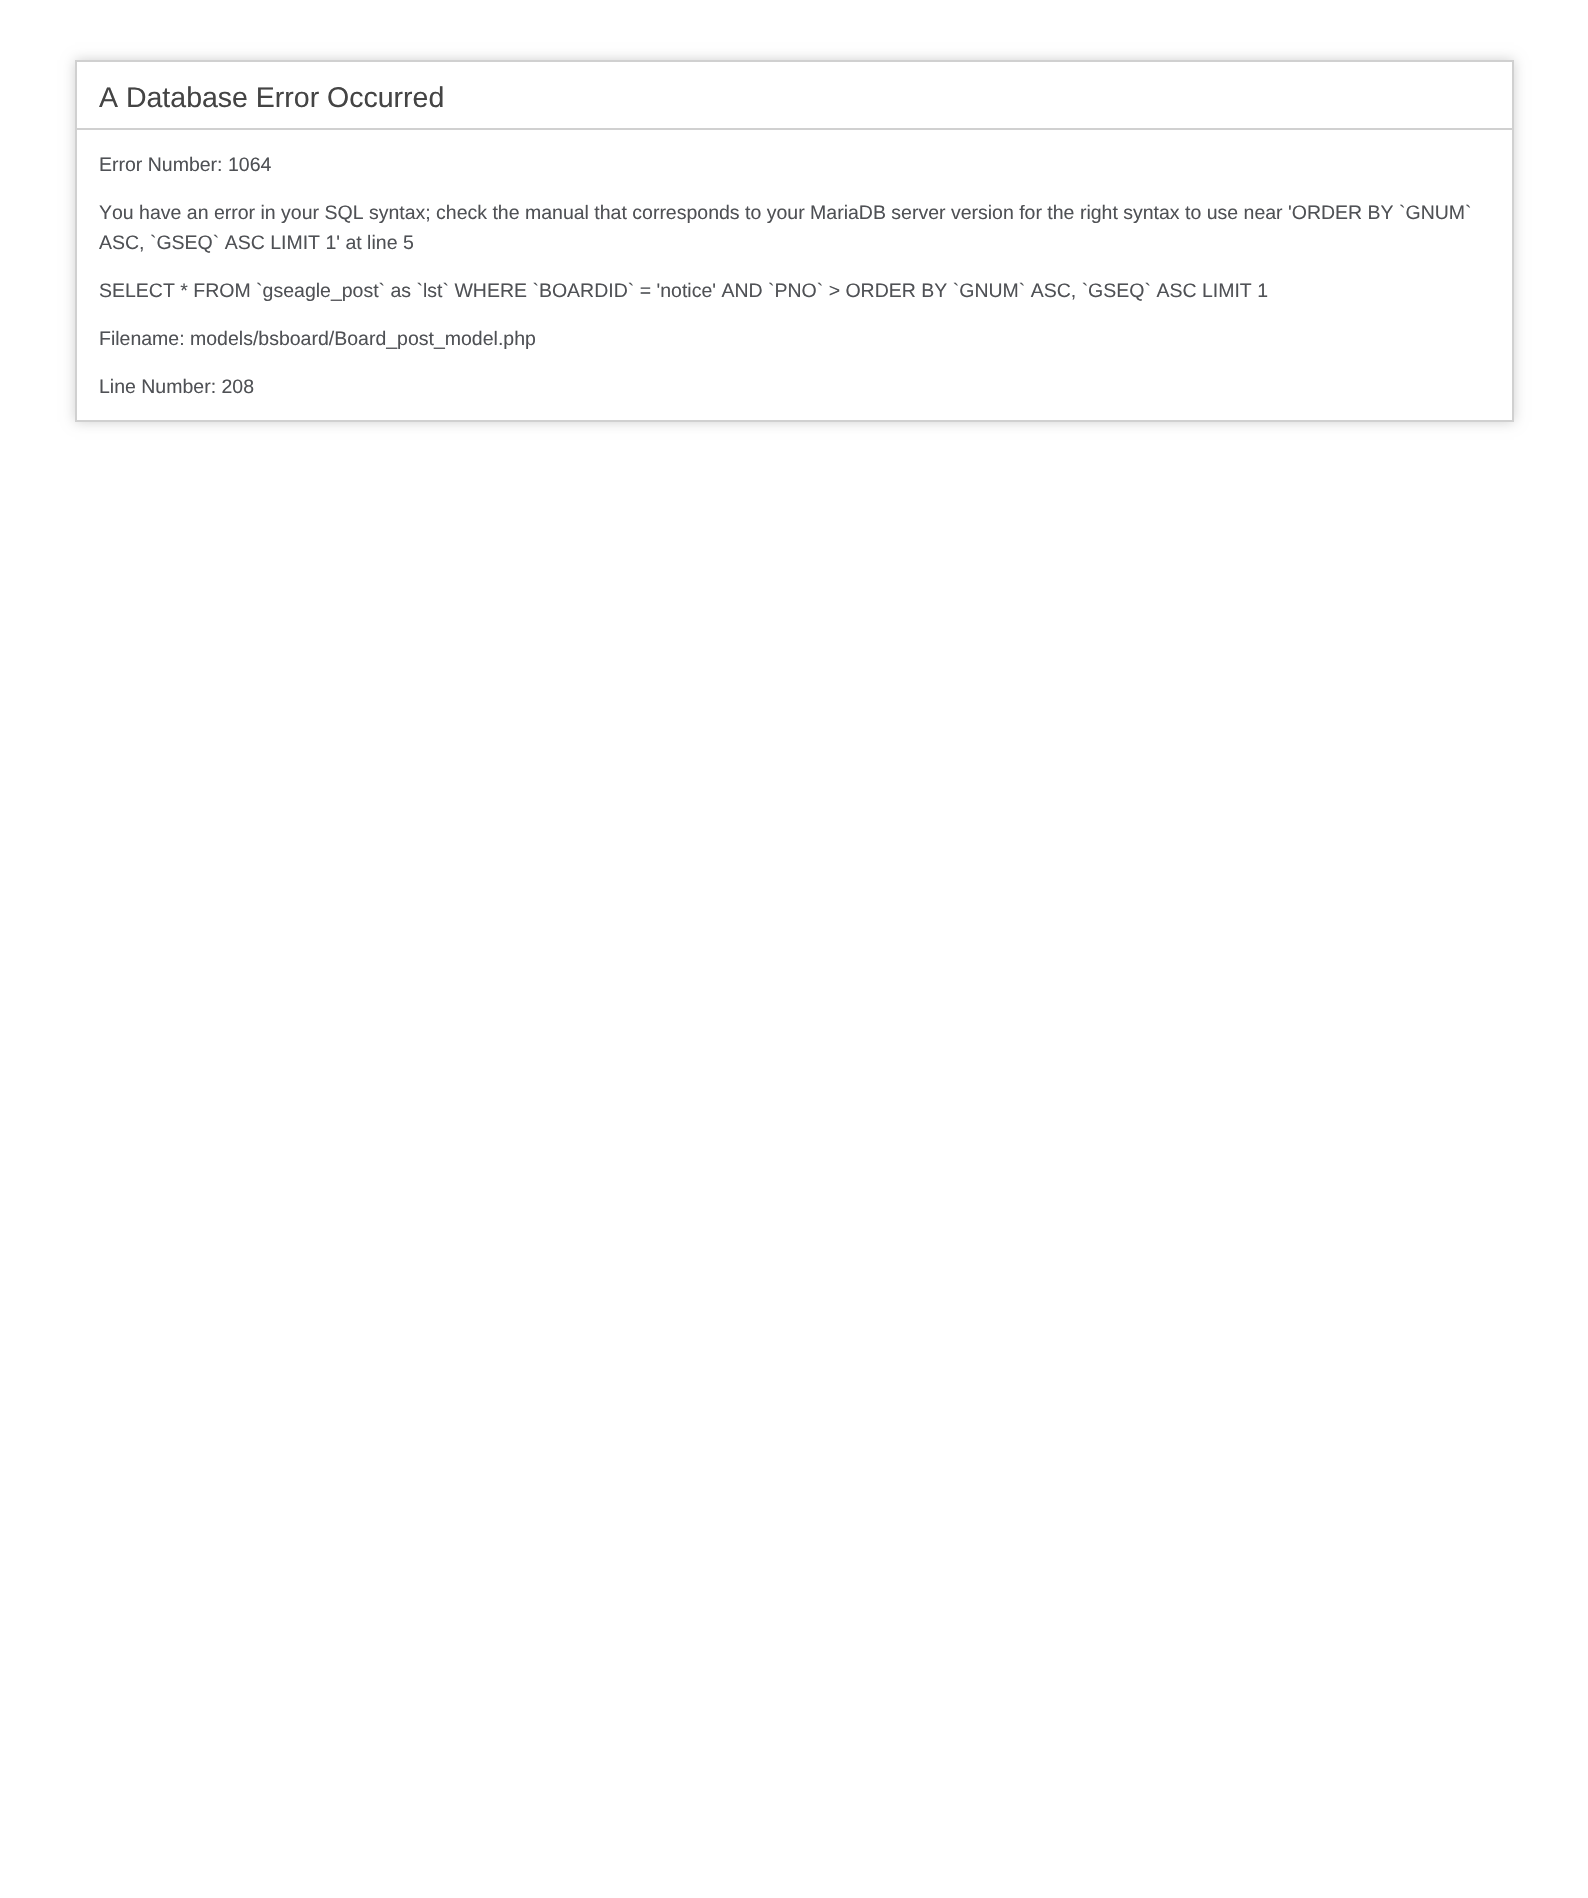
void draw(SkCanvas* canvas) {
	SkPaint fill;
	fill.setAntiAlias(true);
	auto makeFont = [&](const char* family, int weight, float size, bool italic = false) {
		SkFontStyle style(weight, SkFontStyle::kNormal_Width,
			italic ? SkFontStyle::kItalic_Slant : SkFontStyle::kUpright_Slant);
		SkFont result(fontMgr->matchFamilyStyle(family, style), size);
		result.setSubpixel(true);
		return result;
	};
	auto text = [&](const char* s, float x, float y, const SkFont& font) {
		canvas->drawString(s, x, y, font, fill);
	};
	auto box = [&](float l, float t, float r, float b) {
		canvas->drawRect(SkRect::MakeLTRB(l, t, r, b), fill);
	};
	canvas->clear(0xFFFFFFFF);
	canvas->save();
	canvas->clipPath(SkPathBuilder(SkPathFillType::kEvenOdd).moveTo(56, 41).lineTo(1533, 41).lineTo(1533, 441).lineTo(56, 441).close().moveTo(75, 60).lineTo(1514, 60).lineTo(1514, 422).lineTo(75, 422).close().detach(), true);
	fill.setColor(0xFFD0D0D0);
	fill.setMaskFilter(SkMaskFilter::MakeBlur(kNormal_SkBlurStyle, 6));
	canvas->drawRect(SkRect::MakeLTRB(75, 60, 1514, 422), fill);
	fill.setMaskFilter(nullptr);
	canvas->restore();
	fill.setStyle(SkPaint::kStroke_Style);
	fill.setStrokeWidth(2);
	canvas->drawRect(SkRect::MakeLTRB(76, 61, 1513, 421), fill);
	fill.setStyle(SkPaint::kFill_Style);
	box(77, 128, 1512, 130);
	auto font1 = makeFont("Liberation Sans", 400, 28.5f);
	fill.setColor(0xFF444444);
	text("A Database Error Occurred", 99, 107, font1);
	auto font2 = makeFont("Liberation Sans", 400, 19.5f);
	fill.setColor(0xFF4F5155);
	text("Error Number: 1064", 99, 171, font2);
	text("You have an error in your SQL syntax; check the manual that corresponds to your MariaDB server version for the right syntax to use near 'ORDER BY `GNUM`", 99, 219, font2);
	text("ASC, `GSEQ` ASC LIMIT 1' at line 5", 99, 249, font2);
	text("SELECT * FROM `gseagle_post` as `lst` WHERE `BOARDID` = 'notice' AND `PNO` > ORDER BY `GNUM` ASC, `GSEQ` ASC LIMIT 1", 99, 297, font2);
	text("Filename: models/bsboard/Board_post_model.php", 99, 345, font2);
	text("Line Number: 208", 99, 393, font2);
}
